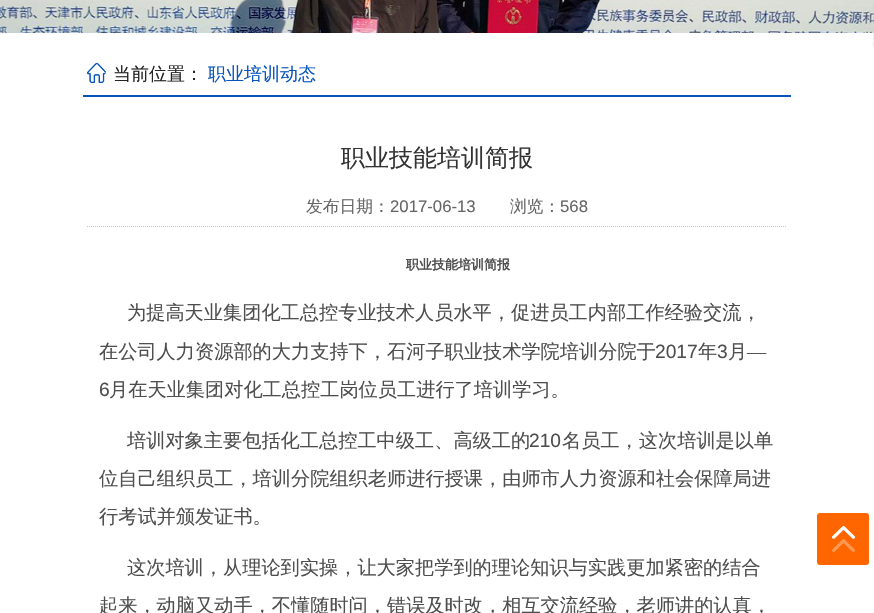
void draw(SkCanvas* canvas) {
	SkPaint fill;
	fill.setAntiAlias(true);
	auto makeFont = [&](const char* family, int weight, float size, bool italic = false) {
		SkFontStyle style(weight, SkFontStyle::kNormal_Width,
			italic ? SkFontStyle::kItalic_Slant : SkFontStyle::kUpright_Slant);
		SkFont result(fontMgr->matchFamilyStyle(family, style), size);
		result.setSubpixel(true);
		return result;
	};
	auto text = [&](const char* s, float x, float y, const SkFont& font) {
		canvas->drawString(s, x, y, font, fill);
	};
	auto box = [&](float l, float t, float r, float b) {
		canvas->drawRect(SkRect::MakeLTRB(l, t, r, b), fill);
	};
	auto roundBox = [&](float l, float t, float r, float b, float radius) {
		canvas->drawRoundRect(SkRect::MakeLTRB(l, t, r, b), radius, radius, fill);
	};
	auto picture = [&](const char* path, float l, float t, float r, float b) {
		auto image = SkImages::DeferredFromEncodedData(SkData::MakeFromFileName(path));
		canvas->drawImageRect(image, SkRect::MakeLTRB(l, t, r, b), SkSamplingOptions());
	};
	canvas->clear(0xFFFFFFFF);
	picture("image0.png", 0, 0, 874, 33);
	fill.setColor(0xFFCCCCCC);
	fill.setMaskFilter(SkMaskFilter::MakeBlur(kNormal_SkBlurStyle, 1));
	canvas->drawRect(SkRect::MakeLTRB(874, 2, 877, 47), fill);
	fill.setMaskFilter(nullptr);
	fill.setColor(0xFF0754BE);
	box(83, 95, 791, 97);
	picture("image1.png", 87, 63, 106, 83);
	fill.setStyle(SkPaint::kStroke_Style);
	fill.setStrokeWidth(1);
	fill.setColor(0xFFC5C5C5);
	fill.setPathEffect(SkDashPathEffect::Make({{1, 1}}, 0));
	canvas->drawPath(SkPathBuilder().moveTo(87, 226.5f).lineTo(787, 226.5f).detach(), fill);
	fill.setPathEffect(nullptr);
	fill.setStyle(SkPaint::kFill_Style);
	fill.setColor(0xFFFF6600);
	roundBox(817, 513, 869, 565, 3);
	picture("image2.png", 832, 526, 855, 552);
	auto font1 = makeFont("WenQuanYi Zen Hei", 500, 18);
	fill.setColor(0xFF222222);
	text("当前位置：", 113, 80, font1);
	fill.setColor(0xFF0754BE);
	text("职业培训动态", 208, 80, font1);
	auto font2 = makeFont("WenQuanYi Zen Hei", 500, 24);
	fill.setColor(0xFF333333);
	text("职业技能培训简报", 341, 166, font2);
	auto font3 = makeFont("WenQuanYi Zen Hei", 500, 16.75f);
	fill.setColor(0xFF666666);
	text("发布日期：", 306, 212, font3);
	auto font4 = makeFont("Liberation Sans", 400, 16.75f);
	text("2017-06-13", 390, 212, font4);
	text("浏览：", 510, 212, font3);
	text("568", 560, 212, font4);
	auto font5 = makeFont("WenQuanYi Zen Hei", 700, 13);
	fill.setColor(0xFF4E4E4E);
	text("职业技能培训简报", 406, 269, font5);
	auto font6 = makeFont("WenQuanYi Zen Hei", 500, 19.2f);
	text("为提高天业集团化工总控专业技术人员水平，促进员工内部工作经验交流，", 127, 319, font6);
	text("在公司人力资源部的大力支持下，石河子职业技术学院培训分院于", 99, 358, font6);
	auto font7 = makeFont("Liberation Sans", 400, 19.2f);
	text("2017", 655, 358, font7);
	text("年", 698, 358, font6);
	text("3", 717, 358, font7);
	text("月", 728, 358, font6);
	auto font8 = makeFont("Liberation Serif", 400, 19.2f);
	text("—", 747, 358, font8);
	text("6", 99, 396, font7);
	text("月在天业集团对化工总控工岗位员工进行了培训学习。", 109, 396, font6);
	text("培训对象主要包括化工总控工中级工、高级工的", 127, 447, font6);
	text("210", 529, 447, font7);
	text("名员工，这次培训是以单", 562, 447, font6);
	text("位自己组织员工，培训分院组织老师进行授课，由师市人力资源和社会保障局进", 99, 485, font6);
	text("行考试并颁发证书。", 99, 523, font6);
	text("这次培训，从理论到实操，让大家把学到的理论知识与实践更加紧密的结合", 127, 574, font6);
	text("起来，动脑又动手，不懂随时问，错误及时改，相互交流经验，老师讲的认真，", 99, 612, font6);
}
